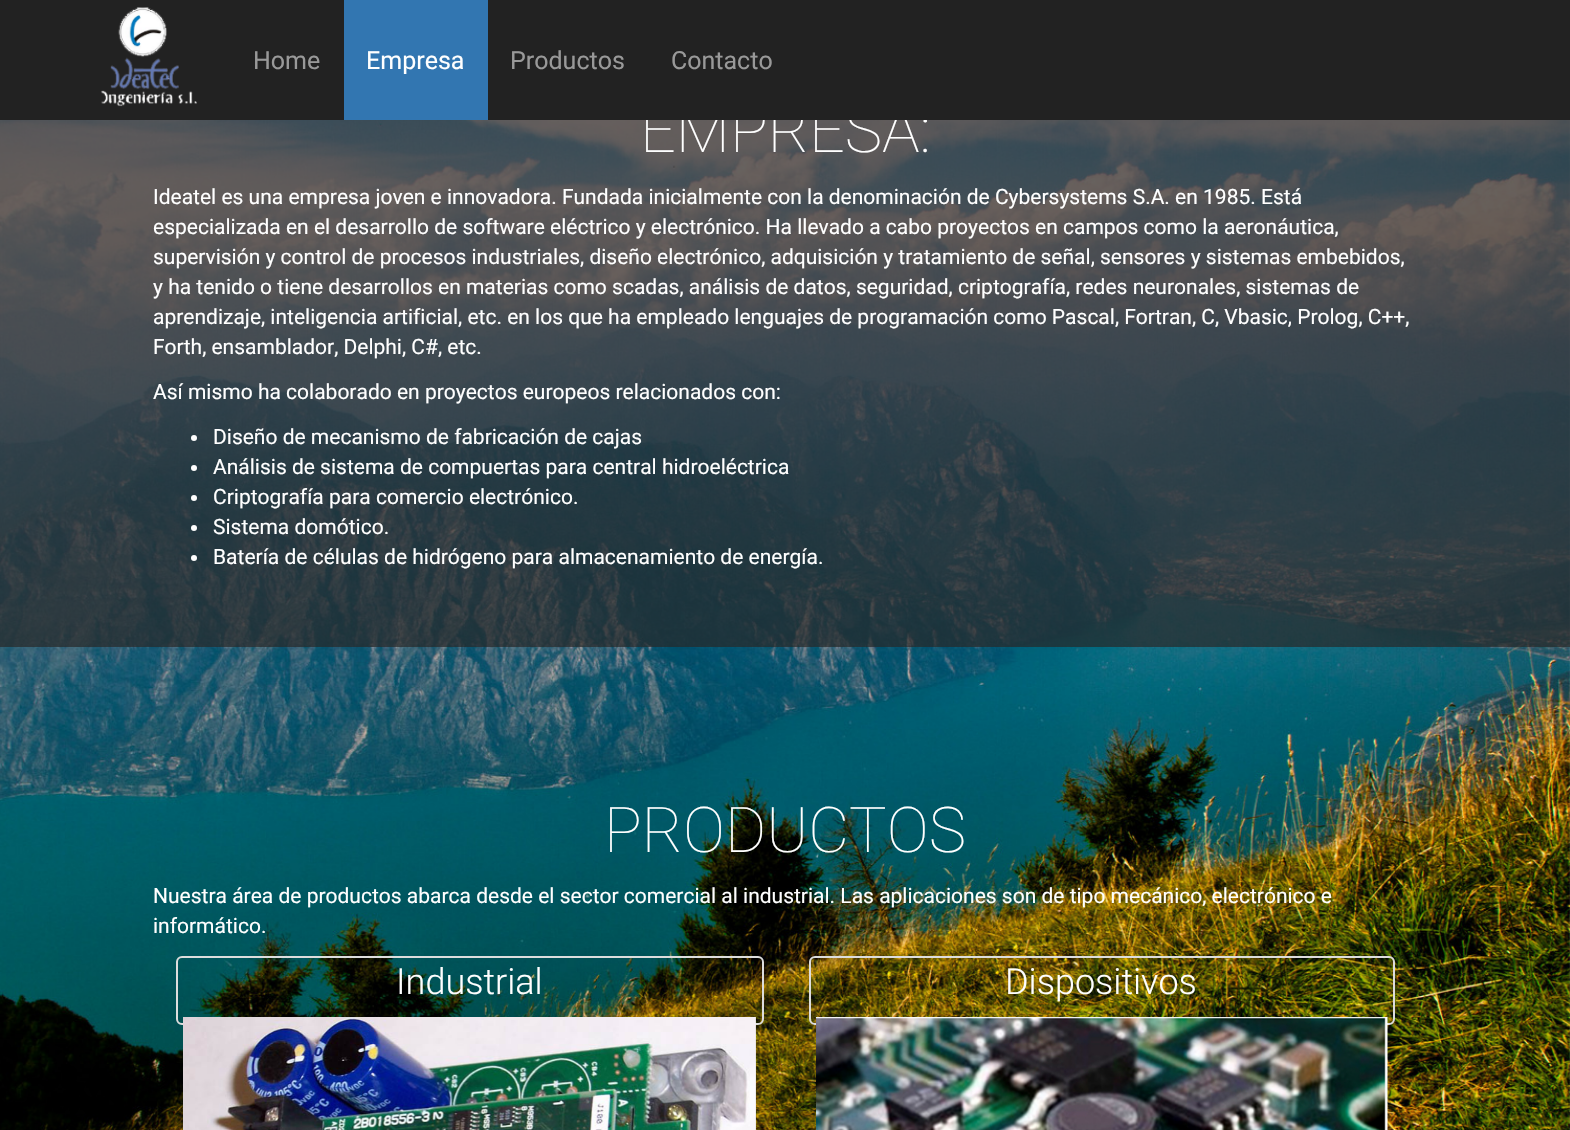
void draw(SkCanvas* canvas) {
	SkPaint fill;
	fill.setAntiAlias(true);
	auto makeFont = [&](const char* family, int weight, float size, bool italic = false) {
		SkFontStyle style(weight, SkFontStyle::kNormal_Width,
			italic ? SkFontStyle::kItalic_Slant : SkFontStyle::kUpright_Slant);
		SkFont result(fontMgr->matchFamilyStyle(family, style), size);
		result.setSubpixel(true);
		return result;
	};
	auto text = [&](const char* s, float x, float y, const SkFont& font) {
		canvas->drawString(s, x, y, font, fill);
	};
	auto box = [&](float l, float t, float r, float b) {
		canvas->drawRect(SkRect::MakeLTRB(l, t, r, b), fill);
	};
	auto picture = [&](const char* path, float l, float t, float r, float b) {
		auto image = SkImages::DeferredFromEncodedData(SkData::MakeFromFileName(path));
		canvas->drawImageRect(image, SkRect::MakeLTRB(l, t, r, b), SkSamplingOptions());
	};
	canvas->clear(0xFFFFFFFF);
	picture("image0.png", 0, 120, 1570, 1130);
	fill.setColor(0xB3262626);
	box(0, 120, 1570, 647);
	fill.setColor(0xFFFFFFFF);
	canvas->drawCircle(194, 438, 3, fill);
	canvas->drawCircle(194, 468, 3, fill);
	canvas->drawCircle(194, 498, 3, fill);
	canvas->drawCircle(194, 528, 3, fill);
	canvas->drawCircle(194, 558, 3, fill);
	fill.setStyle(SkPaint::kStroke_Style);
	fill.setStrokeWidth(2);
	fill.setColor(0xFFDDDDDD);
	canvas->drawRoundRect(SkRect::MakeLTRB(177, 957, 763, 1024), 5, 5, fill);
	picture("image2.png", 183, 1017, 756, 1130);
	canvas->drawRoundRect(SkRect::MakeLTRB(810, 957, 1394, 1024), 5, 5, fill);
	picture("image3.png", 816, 1017, 1388, 1130);
	auto font1 = makeFont("Roboto", 100, 63);
	fill.setStyle(SkPaint::kFill_Style);
	fill.setColor(0xFFFFFFFF);
	text("EMPRESA:", 640, 152, font1);
	fill.setColor(0xFF222222);
	box(0, 0, 1570, 120);
	auto font2 = makeFont("Roboto", 400, 25);
	fill.setColor(0xFF999999);
	text("Contacto", 671, 69, font2);
	text("Productos", 510, 69, font2);
	fill.setColor(0xFF3276B1);
	box(344, 0, 488, 120);
	fill.setColor(0xFFFFFFFF);
	text("Empresa", 366, 69, font2);
	fill.setColor(0xFF999999);
	text("Home", 253, 69, font2);
	picture("image1.png", 101, 7, 197, 107);
	auto font3 = makeFont("Roboto", 400, 21);
	fill.setColor(0xFFFFFFFF);
	text("Ideatel es una empresa joven e innovadora. Fundada inicialmente con la denominación de Cybersystems S.A. en 1985. Está", 153, 204, font3);
	text("especializada en el desarrollo de software eléctrico y electrónico. Ha llevado a cabo proyectos en campos como la aeronáutica,", 153, 234, font3);
	text("supervisión y control de procesos industriales, diseño electrónico, adquisición y tratamiento de señal, sensores y sistemas embebidos,", 153, 264, font3);
	text("y ha tenido o tiene desarrollos en materias como scadas, análisis de datos, seguridad, criptografía, redes neuronales, sistemas de", 153, 294, font3);
	text("aprendizaje, inteligencia artificial, etc. en los que ha empleado lenguajes de programación como Pascal, Fortran, C, Vbasic, Prolog, C++,", 153, 324, font3);
	text("Forth, ensamblador, Delphi, C#, etc.", 153, 354, font3);
	text("Así mismo ha colaborado en proyectos europeos relacionados con:", 153, 399, font3);
	text("Diseño de mecanismo de fabricación de cajas", 213, 444, font3);
	text("Análisis de sistema de compuertas para central hidroeléctrica", 213, 474, font3);
	text("Criptografía para comercio electrónico.", 213, 504, font3);
	text("Sistema domótico.", 213, 534, font3);
	text("Batería de células de hidrógeno para almacenamiento de energía.", 213, 564, font3);
	text("PRODUCTOS", 604, 852, font1);
	text("Nuestra área de productos abarca desde el sector comercial al industrial. Las aplicaciones son de tipo mecánico, electrónico e", 153, 903, font3);
	text("informático.", 153, 933, font3);
	auto font4 = makeFont("Roboto", 300, 36);
	text("Industrial", 396, 994, font4);
	text("Dispositivos", 1005, 994, font4);
}
